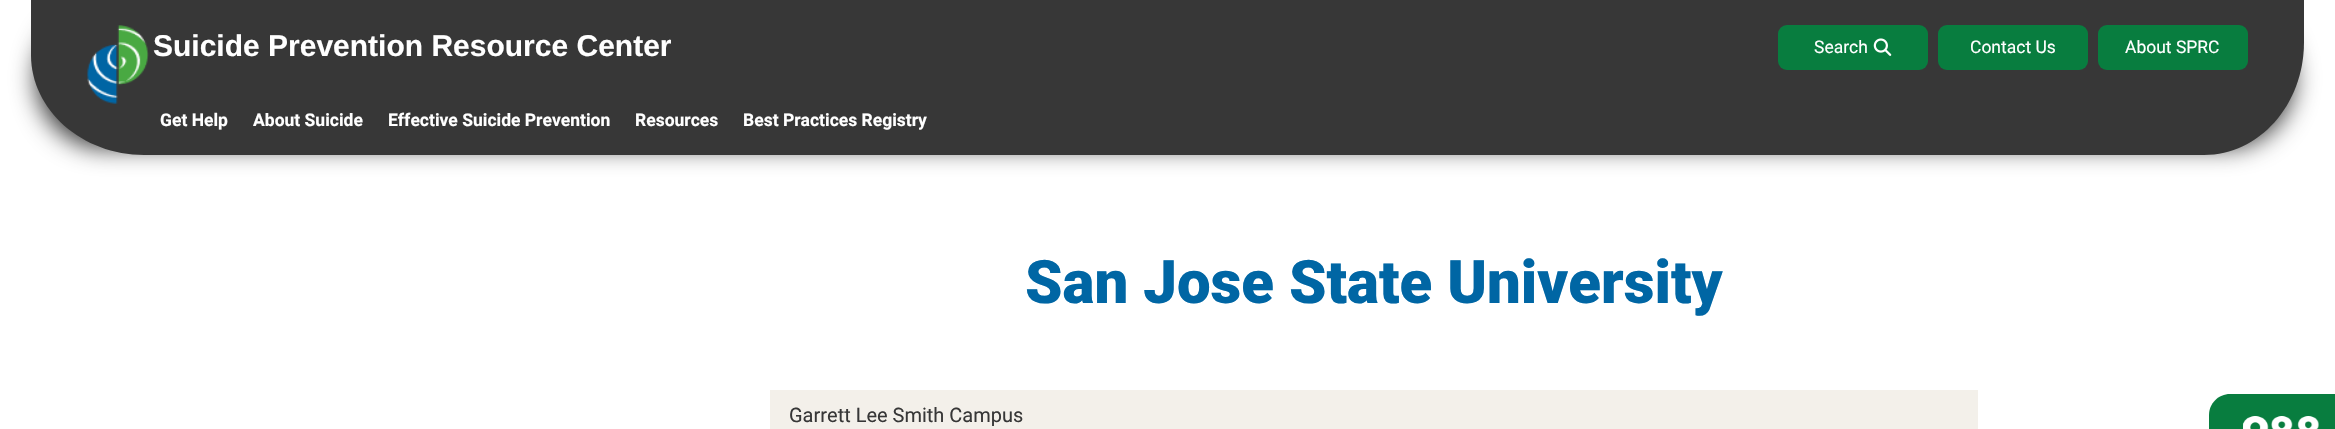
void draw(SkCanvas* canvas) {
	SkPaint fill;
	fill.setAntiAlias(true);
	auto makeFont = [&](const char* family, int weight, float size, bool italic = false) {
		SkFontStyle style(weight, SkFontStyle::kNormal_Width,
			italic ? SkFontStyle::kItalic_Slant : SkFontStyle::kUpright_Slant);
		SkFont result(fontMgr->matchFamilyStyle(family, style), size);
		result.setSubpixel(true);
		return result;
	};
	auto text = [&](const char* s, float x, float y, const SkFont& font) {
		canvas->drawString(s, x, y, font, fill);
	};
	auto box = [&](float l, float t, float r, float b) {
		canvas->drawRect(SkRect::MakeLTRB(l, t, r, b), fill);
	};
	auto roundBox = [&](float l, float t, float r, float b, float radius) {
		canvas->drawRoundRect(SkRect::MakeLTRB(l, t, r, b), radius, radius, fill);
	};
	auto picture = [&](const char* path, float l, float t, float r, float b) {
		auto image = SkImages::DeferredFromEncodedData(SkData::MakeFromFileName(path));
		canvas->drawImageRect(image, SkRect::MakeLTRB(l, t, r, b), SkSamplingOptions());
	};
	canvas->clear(0xFFFFFFFF);
	fill.setColor(0xFF373737);
	fill.setMaskFilter(SkMaskFilter::MakeBlur(kNormal_SkBlurStyle, 12));
	canvas->drawRoundRect(SkRect::MakeLTRB(36, 8, 2294, 148), 93, 93, fill);
	fill.setMaskFilter(nullptr);
	canvas->drawPath(SkPathBuilder().moveTo(31, 0).lineTo(2304, 0).lineTo(2304, 42).cubicTo(2304, 105, 2259, 155, 2204, 155).lineTo(144, 155).cubicTo(82, 155, 31, 110, 31, 55).close().detach(), fill);
	picture("image0.png", 87, 25, 149, 104);
	fill.setColor(0xFF087D3F);
	roundBox(1778, 25, 1928, 70, 9);
	picture("image1.png", 1873, 38, 1892, 56);
	roundBox(1938, 25, 2088, 70, 9);
	roundBox(2098, 25, 2248, 70, 9);
	fill.setColor(0xFFF3F0EA);
	box(770, 390, 1978, 429);
	fill.setColor(0xFF087D3F);
	canvas->drawPath(SkPathBuilder().moveTo(2230, 394).lineTo(2335, 394).lineTo(2335, 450).lineTo(2230, 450).cubicTo(2218.5f, 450, 2209, 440.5f, 2209, 429).lineTo(2209, 415).cubicTo(2209, 403.5f, 2218.5f, 394, 2230, 394).close().detach(), fill);
	picture("image2.png", 2243, 416, 2319, 429);
	auto font1 = makeFont("Liberation Sans", 700, 30);
	fill.setColor(0xFFFFFFFF);
	text("Suicide Prevention Resource Center", 153, 56, font1);
	auto font2 = makeFont("Roboto", 400, 17.5f);
	text("Search", 1814, 53, font2);
	text("Contact Us", 1970, 53, font2);
	text("About SPRC", 2125, 53, font2);
	auto font3 = makeFont("Roboto", 700, 17.5f);
	text("Get Help", 160, 126, font3);
	text("About Suicide", 253, 126, font3);
	text("Effective Suicide Prevention", 388, 126, font3);
	text("Resources", 635, 126, font3);
	text("Best Practices Registry", 743, 126, font3);
	auto font4 = makeFont("Roboto", 900, 60);
	fill.setColor(0xFF0066A4);
	text("San Jose State University", 1025, 303, font4);
	auto font5 = makeFont("Roboto", 400, 20);
	fill.setColor(0xFF373737);
	text("Garrett Lee Smith Campus", 789, 422, font5);
}
